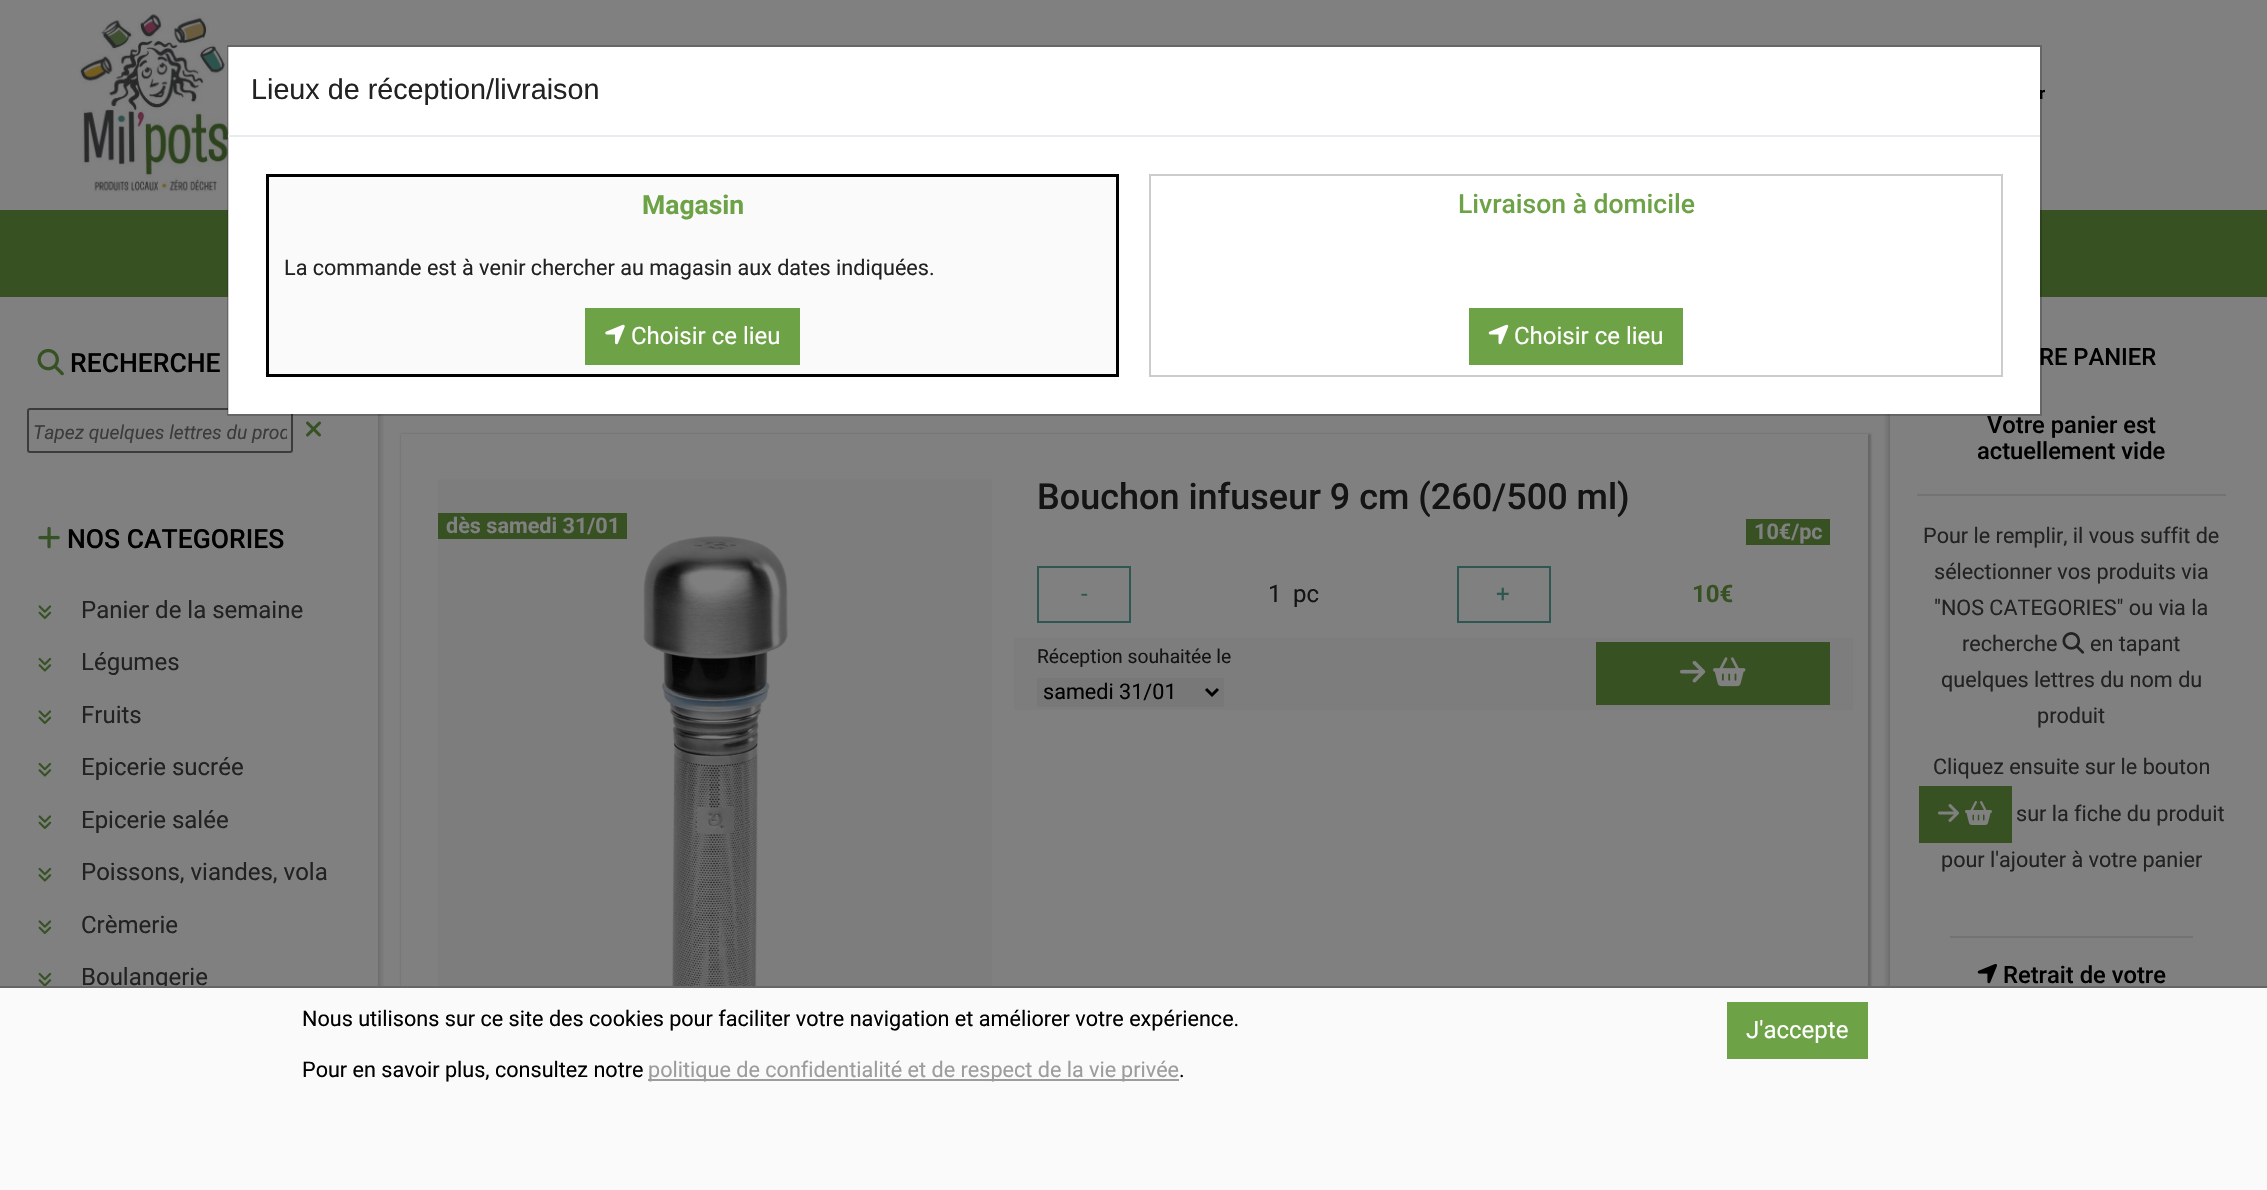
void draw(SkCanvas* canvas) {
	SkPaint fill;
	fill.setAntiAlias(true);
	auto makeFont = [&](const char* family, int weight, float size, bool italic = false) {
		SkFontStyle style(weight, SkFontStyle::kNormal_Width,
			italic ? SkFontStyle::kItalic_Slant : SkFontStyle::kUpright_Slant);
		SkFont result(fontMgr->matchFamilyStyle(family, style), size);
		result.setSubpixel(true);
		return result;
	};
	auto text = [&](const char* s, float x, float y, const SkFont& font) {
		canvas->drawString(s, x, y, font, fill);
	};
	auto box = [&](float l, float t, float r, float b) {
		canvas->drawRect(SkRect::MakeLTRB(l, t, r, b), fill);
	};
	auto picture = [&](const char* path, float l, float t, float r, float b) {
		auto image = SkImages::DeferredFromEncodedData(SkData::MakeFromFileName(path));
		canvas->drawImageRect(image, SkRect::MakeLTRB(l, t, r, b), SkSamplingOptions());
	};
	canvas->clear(0xFF808080);
	canvas->save();
	canvas->clipRect(SkRect::MakeLTRB(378, 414, 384, 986));
	fill.setColor(0x4D000000);
	fill.setMaskFilter(SkMaskFilter::MakeBlur(kNormal_SkBlurStyle, 4));
	canvas->drawRect(SkRect::MakeLTRB(0, 300, 378, 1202), fill);
	fill.setMaskFilter(nullptr);
	canvas->restore();
	picture("image0.png", 37, 348, 64, 376);
	fill.setStyle(SkPaint::kStroke_Style);
	fill.setStrokeWidth(2);
	fill.setColor(0xFF3B3B3B);
	canvas->drawRoundRect(SkRect::MakeLTRB(28, 409, 292, 452), 2, 2, fill);
	picture("image1.png", 306, 421, 321, 437);
	picture("image2.png", 38, 526, 60, 549);
	picture("image3.png", 38, 605, 52, 619);
	picture("image4.png", 38, 657, 52, 672);
	picture("image3.png", 38, 710, 52, 724);
	picture("image4.png", 38, 762, 52, 777);
	picture("image3.png", 38, 815, 52, 829);
	picture("image4.png", 38, 867, 52, 882);
	picture("image3.png", 38, 920, 52, 934);
	picture("image5.png", 38, 972, 52, 986);
	fill.setStyle(SkPaint::kFill_Style);
	fill.setColor(0xFF666666);
	fill.setMaskFilter(SkMaskFilter::MakeBlur(kNormal_SkBlurStyle, 1));
	canvas->drawRect(SkRect::MakeLTRB(401, 434, 1871, 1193), fill);
	fill.setMaskFilter(nullptr);
	fill.setColor(0xFF808080);
	box(401, 434, 1868, 986);
	fill.setColor(0xFF7D7D7D);
	box(438, 479, 992, 986);
	picture("image8.png", 643, 536, 788, 986);
	fill.setColor(0xFF375123);
	box(438, 513, 627, 539);
	box(1746, 519, 1830, 545);
	fill.setStyle(SkPaint::kStroke_Style);
	fill.setColor(0xFF2F5751);
	canvas->drawRect(SkRect::MakeLTRB(1038, 567, 1130, 622), fill);
	canvas->drawRect(SkRect::MakeLTRB(1458, 567, 1550, 622), fill);
	fill.setStyle(SkPaint::kFill_Style);
	fill.setColor(0xFF7D7D7D);
	box(1014, 638, 1853, 710);
	fill.setColor(0xFF787878);
	box(1037, 678, 1224, 707);
	fill.setStyle(SkPaint::kStroke_Style);
	fill.setStrokeWidth(3);
	fill.setColor(0xFF000000);
	canvas->drawPath(SkPathBuilder().moveTo(1206, 689).lineTo(1212, 695).lineTo(1218, 689).detach(), fill);
	fill.setStyle(SkPaint::kFill_Style);
	fill.setColor(0xFF375123);
	box(1596, 642, 1830, 705);
	picture("image9.png", 1680, 660, 1706, 683);
	picture("image10.png", 1713, 657, 1746, 687);
	canvas->save();
	canvas->clipRect(SkRect::MakeLTRB(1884, 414, 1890, 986));
	fill.setColor(0x4D000000);
	fill.setMaskFilter(SkMaskFilter::MakeBlur(kNormal_SkBlurStyle, 4));
	canvas->drawRect(SkRect::MakeLTRB(1890, 300, 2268, 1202), fill);
	fill.setMaskFilter(nullptr);
	canvas->restore();
	fill.setColor(0xFF737373);
	box(1917, 494, 2226, 496);
	picture("image11.png", 2062, 632, 2085, 654);
	fill.setColor(0xFF375123);
	box(1919, 786, 2012, 843);
	picture("image12.png", 1938, 804, 1959, 822);
	picture("image13.png", 1965, 801, 1992, 825);
	fill.setColor(0xFF737373);
	box(1950, 936, 2193, 938);
	picture("image14.png", 1977, 964, 1997, 984);
	picture("image15.png", 79, 14, 233, 192);
	fill.setColor(0xFF375123);
	box(0, 210, 2267, 297);
	fill.setColor(0xFF808080);
	box(0, 297, 2267, 299);
	auto font1 = makeFont("Roboto", 500, 26.5f);
	fill.setColor(0xFF000000);
	text("RECHERCHE", 70, 372, font1);
	canvas->save();
	canvas->clipRect(SkRect::MakeLTRB(33, 420, 287, 443));
	auto font2 = makeFont("Roboto", 400, 19.25f, true);
	fill.setColor(0xFF3B3B3B);
	text("Tapez quelques lettres du prod", 33, 439, font2);
	canvas->restore();
	fill.setColor(0xFF000000);
	text("NOS CATEGORIES", 67, 548, font1);
	auto font3 = makeFont("Roboto", 400, 24);
	fill.setColor(0xFF222222);
	text("Panier de la semaine", 81, 618, font3);
	text("Légumes", 81, 670, font3);
	text("Fruits", 81, 723, font3);
	text("Epicerie sucrée", 81, 775, font3);
	text("Epicerie salée", 81, 828, font3);
	text("Poissons, viandes, vola", 81, 880, font3);
	text("Crèmerie", 81, 933, font3);
	text("Boulangerie", 81, 985, font3);
	auto font4 = makeFont("Roboto", 700, 21.6f);
	fill.setColor(0xFF808080);
	text("dès samedi 31/01", 446, 533, font4);
	auto font5 = makeFont("Roboto", 500, 36);
	fill.setColor(0xFF141414);
	text("Bouchon infuseur 9 cm (260/500 ml)", 1037, 509, font5);
	fill.setColor(0xFF808080);
	text("10€/pc", 1754, 539, font4);
	fill.setColor(0xFF2F5751);
	text("-", 1081, 602, font3);
	fill.setColor(0xFF141414);
	text("1", 1268, 602, font3);
	text("pc", 1293, 602, font3);
	fill.setColor(0xFF2F5751);
	text("+", 1496, 602, font3);
	auto font6 = makeFont("Roboto", 700, 24);
	fill.setColor(0xFF375123);
	text("10€", 1692, 602, font6);
	auto font7 = makeFont("Roboto", 400, 19.25f);
	fill.setColor(0xFF141414);
	text("Réception souhaitée le", 1037, 663, font7);
	auto font8 = makeFont("Roboto", 400, 21.6f);
	fill.setColor(0xFF000000);
	text("samedi 31/01", 1043, 699, font8);
	auto font9 = makeFont("Roboto", 500, 23.75f);
	text("RE PANIER", 2039, 365, font9);
	text("Votre panier est", 1987, 433, font9);
	text("actuellement vide", 1977, 459, font9);
	fill.setColor(0xFF222222);
	text("Pour le remplir, il vous suffit de", 1923, 543, font8);
	text("sélectionner vos produits via", 1934, 579, font8);
	text("\"NOS CATEGORIES\" ou via la", 1934, 615, font8);
	text("recherche", 1962, 651, font8);
	text("en tapant", 2090, 651, font8);
	text("quelques lettres du nom du", 1941, 687, font8);
	text("produit", 2037, 723, font8);
	text("Cliquez ensuite sur le bouton", 1933, 774, font8);
	text("sur la fiche du produit", 2016, 821, font8);
	text("pour l'ajouter à votre panier", 1941, 867, font8);
	fill.setColor(0xFF000000);
	text("Retrait de votre", 2003, 983, font9);
	auto font10 = makeFont("Roboto", 700, 17);
	text("r", 2039, 99, font10);
	fill.setColor(0xFFFFFFFF);
	box(228, 47, 2040, 414);
	fill.setStyle(SkPaint::kStroke_Style);
	fill.setStrokeWidth(2);
	fill.setColor(0x33000000);
	canvas->drawRect(SkRect::MakeLTRB(228, 46, 2041, 415), fill);
	fill.setColor(0xFFCCCCCC);
	canvas->drawRect(SkRect::MakeLTRB(1150, 175, 2002, 376), fill);
	fill.setStyle(SkPaint::kFill_Style);
	fill.setColor(0xFF6DA246);
	box(1469, 308, 1683, 365);
	fill.setColor(0xFFFFFFFF);
	text("Choisir ce lieu", 1514, 344, font3);
	picture("image7.png", 1488, 324, 1509, 345);
	fill.setColor(0xFF6DA246);
	text("Livraison à domicile", 1458, 213, font1);
	fill.setColor(0xFFFAFAFA);
	canvas->drawRect(SkRect::MakeLTRB(267.5f, 175.5f, 1117.5f, 375.5f), fill);
	fill.setStyle(SkPaint::kStroke_Style);
	fill.setStrokeWidth(3);
	fill.setColor(0xFF000000);
	canvas->drawRect(SkRect::MakeLTRB(267.5f, 175.5f, 1117.5f, 375.5f), fill);
	fill.setStyle(SkPaint::kFill_Style);
	fill.setColor(0xFF6DA246);
	box(585, 308, 800, 365);
	fill.setColor(0xFFFFFFFF);
	text("Choisir ce lieu", 631, 344, font3);
	picture("image6.png", 605, 324, 625, 345);
	fill.setColor(0xFF222222);
	text("La commande est à venir chercher au magasin aux dates indiquées.", 284, 275, font8);
	auto font11 = makeFont("Roboto", 700, 26.5f);
	fill.setColor(0xFF6DA246);
	text("Magasin", 642, 214, font11);
	auto font12 = makeFont("Liberation Sans", 400, 28.75f);
	fill.setColor(0xFF222222);
	text("Lieux de réception/livraison", 251, 99, font12);
	fill.setColor(0xFFE9ECEF);
	box(228, 135, 2040, 137);
	fill.setColor(0xFFFAFAFA);
	box(0, 988, 2267, 1190);
	fill.setColor(0xFF666666);
	box(0, 986, 2267, 988);
	fill.setColor(0xFF000000);
	text("Nous utilisons sur ce site des cookies pour faciliter votre navigation et améliorer votre expérience.", 302, 1026, font8);
	text("Pour en savoir plus, consultez notre", 302, 1077, font8);
	fill.setColor(0xFF9C9C9C);
	box(648, 1079, 1179, 1081);
	text("politique de confidentialité et de respect de la vie", 648, 1077, font8);
	text("privée", 1121, 1077, font8);
	fill.setColor(0xFF000000);
	text(".", 1179, 1077, font8);
	fill.setColor(0xFF6DA246);
	box(1727, 1002, 1868, 1059);
	fill.setColor(0xFFFFFFFF);
	text("J'accepte", 1746, 1038, font3);
}
